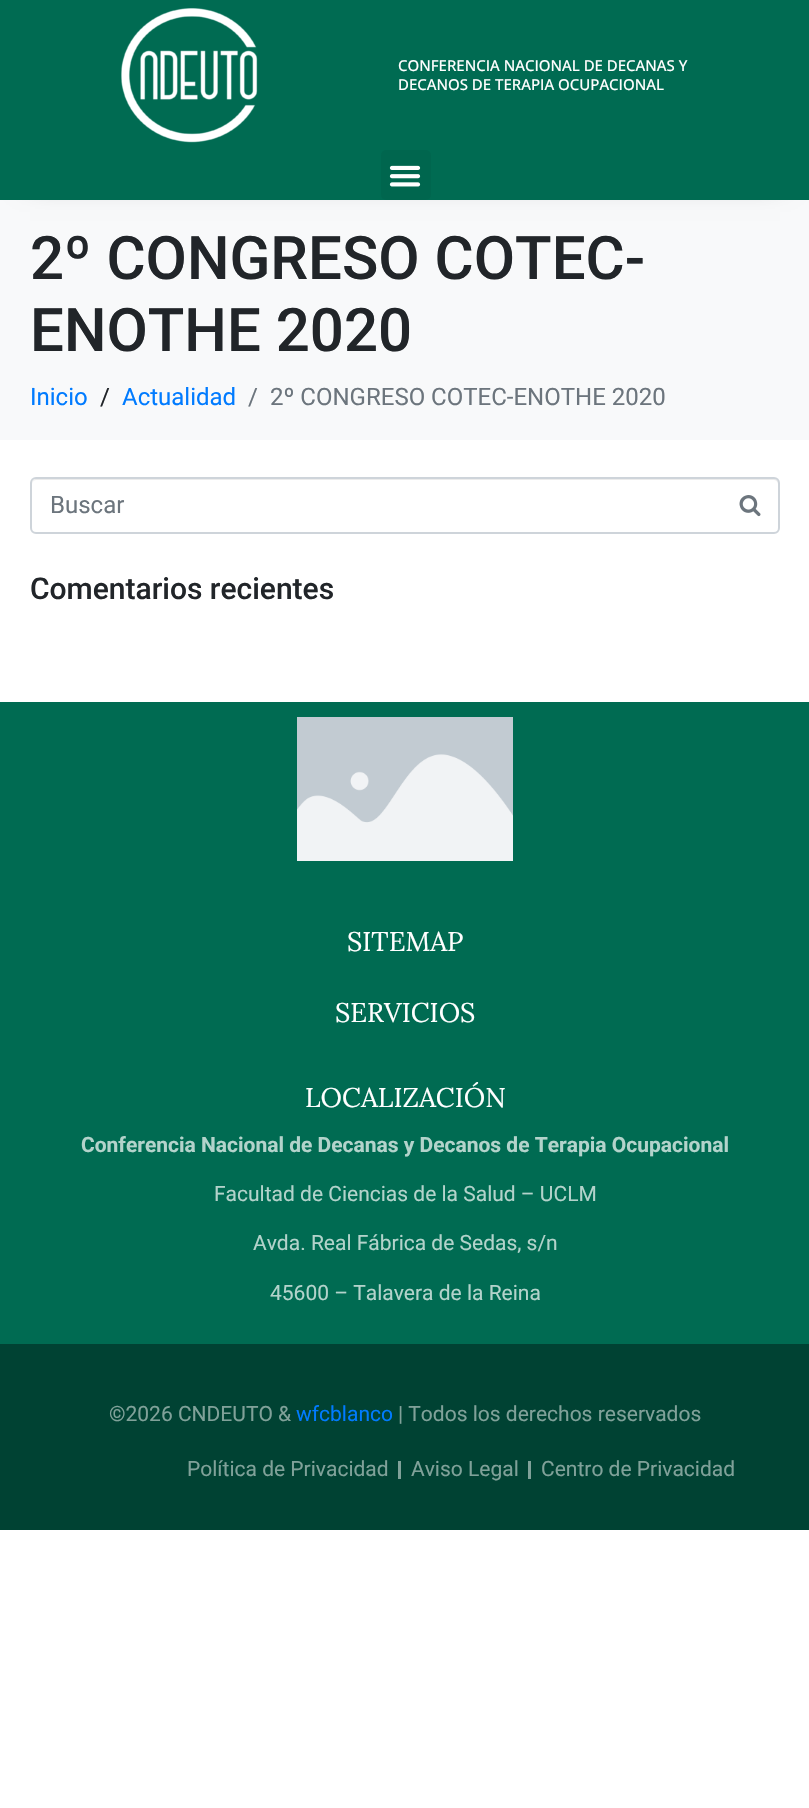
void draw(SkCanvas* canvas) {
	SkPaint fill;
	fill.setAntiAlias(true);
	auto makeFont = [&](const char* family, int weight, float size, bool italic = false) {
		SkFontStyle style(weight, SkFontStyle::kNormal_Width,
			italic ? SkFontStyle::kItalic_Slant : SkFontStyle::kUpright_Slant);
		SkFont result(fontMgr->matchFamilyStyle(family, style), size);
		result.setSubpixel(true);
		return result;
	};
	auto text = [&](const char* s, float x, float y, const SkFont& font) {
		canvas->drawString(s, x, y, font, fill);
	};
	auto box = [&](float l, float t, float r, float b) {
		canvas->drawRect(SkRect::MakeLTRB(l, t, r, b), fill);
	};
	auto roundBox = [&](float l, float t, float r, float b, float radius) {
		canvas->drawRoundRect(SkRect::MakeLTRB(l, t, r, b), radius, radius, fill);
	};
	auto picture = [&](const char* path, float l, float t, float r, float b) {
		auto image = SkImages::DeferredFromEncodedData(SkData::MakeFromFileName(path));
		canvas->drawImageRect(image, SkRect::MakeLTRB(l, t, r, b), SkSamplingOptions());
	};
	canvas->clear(0xFFFFFFFF);
	fill.setColor(0xFFF8F9FA);
	box(0, 200, 809, 440);
	fill.setColor(0x80000000);
	fill.setMaskFilter(SkMaskFilter::MakeBlur(kNormal_SkBlurStyle, 15));
	canvas->drawRect(SkRect::MakeLTRB(30, 36, 780, 176), fill);
	fill.setMaskFilter(nullptr);
	fill.setColor(0xFF006B52);
	box(0, 0, 809, 200);
	picture("image0.png", 121, 8, 258, 143);
	fill.setColor(0xFF00664E);
	roundBox(381, 150, 431, 200, 5);
	picture("image1.png", 389, 165, 421, 187);
	fill.setColor(0xFFECECEC);
	canvas->drawPath(SkPathBuilder().moveTo(36, 480).lineTo(774, 480).cubicTo(776, 480, 778, 482, 778, 484).lineTo(778, 531).cubicTo(779, 530, 779, 529, 779, 528).lineTo(779, 484).cubicTo(779, 481, 777, 479, 774, 479).lineTo(37, 479).cubicTo(34, 479, 32, 481, 32, 484).cubicTo(32, 482, 34, 480, 36, 480).close().detach(), fill);
	fill.setStyle(SkPaint::kStroke_Style);
	fill.setStrokeWidth(2);
	fill.setColor(0xFFCED4DA);
	canvas->drawRoundRect(SkRect::MakeLTRB(31, 478, 779, 533), 5, 5, fill);
	picture("image2.png", 739, 495, 761, 517);
	fill.setStyle(SkPaint::kFill_Style);
	fill.setColor(0xFF006B52);
	box(0, 702, 809, 1344);
	picture("image3.png", 297, 717, 513, 861);
	fill.setColor(0xFF004233);
	box(0, 1344, 809, 1530);
	fill.setColor(0xFF80A199);
	box(398, 1461, 401, 1479);
	box(528, 1461, 531, 1479);
	auto font1 = makeFont("Open Sans", 500, 15);
	fill.setColor(0xFFFFFFFF);
	text("CONFERENCIA NACIONAL DE DECANAS Y", 398, 71, font1);
	text("DECANOS DE TERAPIA OCUPACIONAL", 398, 90, font1);
	auto font2 = makeFont("Roboto", 500, 60);
	fill.setColor(0xFF212529);
	text("2º CONGRESO COTEC-", 30, 279, font2);
	text("ENOTHE 2020", 30, 351, font2);
	auto font3 = makeFont("Roboto", 400, 24);
	fill.setColor(0xFF007BFF);
	text("Inicio", 30, 405, font3);
	fill.setColor(0xFF212529);
	text("/", 100, 405, font3);
	fill.setColor(0xFF007BFF);
	text("Actualidad", 122, 405, font3);
	fill.setColor(0xFF6C757D);
	text("/", 248, 405, font3);
	text("2º CONGRESO COTEC-ENOTHE 2020", 270, 405, font3);
	text("Buscar", 50, 513, font3);
	auto font4 = makeFont("Roboto", 500, 30);
	fill.setColor(0xFF212529);
	text("Comentarios recientes", 30, 599, font4);
	auto font5 = makeFont("Lora", 400, 27);
	fill.setColor(0xFFFFFFFF);
	text("SITEMAP", 347, 951, font5);
	text("SERVICIOS", 335, 1022, font5);
	text("LOCALIZACIÓN", 305, 1107, font5);
	auto font6 = makeFont("Roboto", 700, 21);
	fill.setColor(0xFFB3D3CB);
	text("Conferencia Nacional de Decanas y Decanos de Terapia Ocupacional", 81, 1152, font6);
	auto font7 = makeFont("Roboto", 400, 21);
	text("Facultad de Ciencias de la Salud – UCLM", 214, 1201, font7);
	text("Avda. Real Fábrica de Sedas, s/n", 253, 1250, font7);
	text("45600 – Talavera de la Reina", 270, 1300, font7);
	fill.setColor(0xFF80A199);
	text("©2026 CNDEUTO &", 109, 1421, font7);
	fill.setColor(0xFF007BFF);
	text("wfcblanco", 296, 1421, font7);
	fill.setColor(0xFF80A199);
	text("| Todos los derechos reservados", 398, 1421, font7);
	text("Política de Privacidad", 187, 1476, font7);
	text("Aviso Legal", 411, 1476, font7);
	text("Centro de Privacidad", 541, 1476, font7);
}
